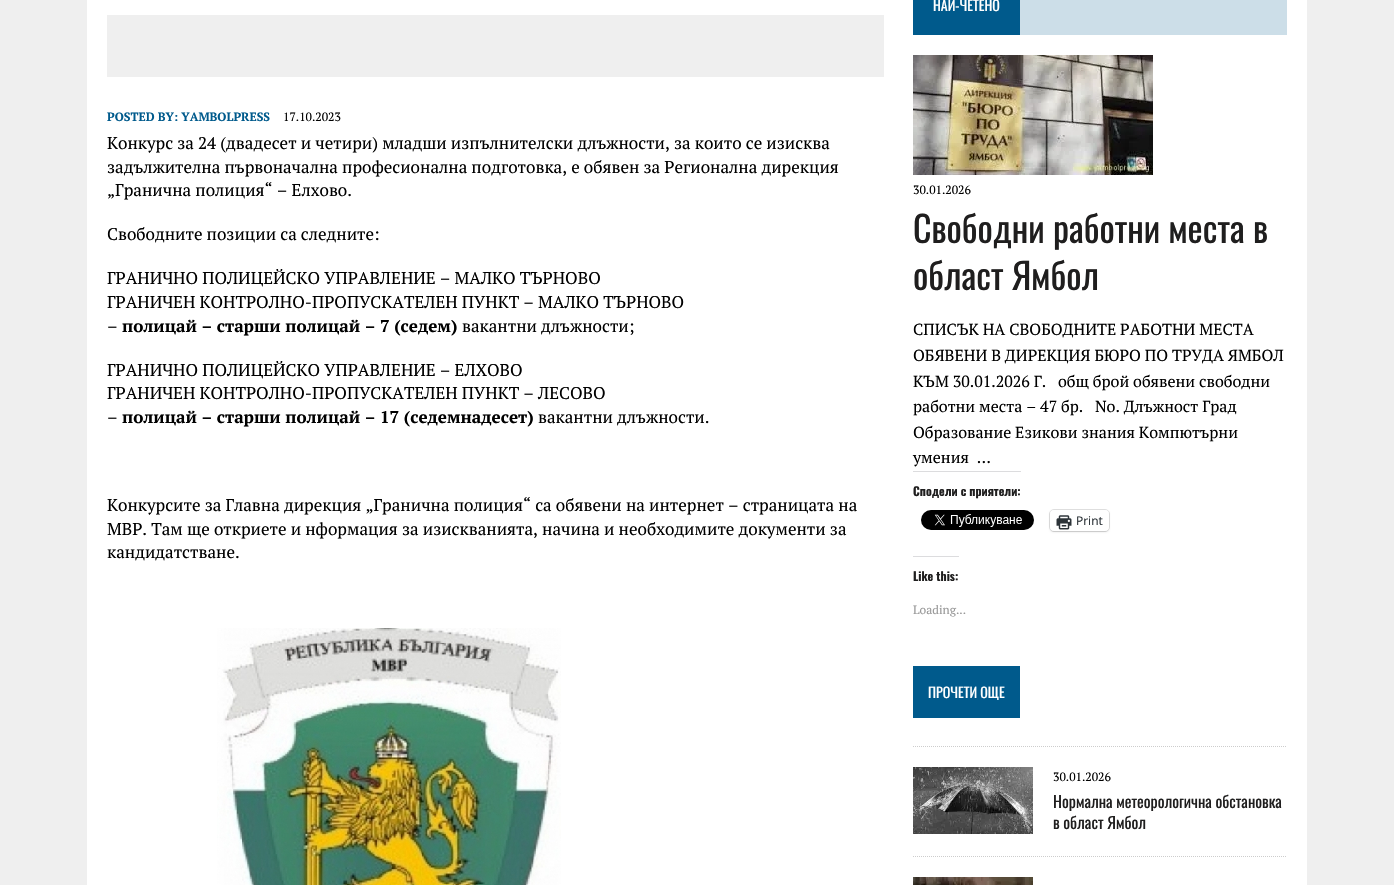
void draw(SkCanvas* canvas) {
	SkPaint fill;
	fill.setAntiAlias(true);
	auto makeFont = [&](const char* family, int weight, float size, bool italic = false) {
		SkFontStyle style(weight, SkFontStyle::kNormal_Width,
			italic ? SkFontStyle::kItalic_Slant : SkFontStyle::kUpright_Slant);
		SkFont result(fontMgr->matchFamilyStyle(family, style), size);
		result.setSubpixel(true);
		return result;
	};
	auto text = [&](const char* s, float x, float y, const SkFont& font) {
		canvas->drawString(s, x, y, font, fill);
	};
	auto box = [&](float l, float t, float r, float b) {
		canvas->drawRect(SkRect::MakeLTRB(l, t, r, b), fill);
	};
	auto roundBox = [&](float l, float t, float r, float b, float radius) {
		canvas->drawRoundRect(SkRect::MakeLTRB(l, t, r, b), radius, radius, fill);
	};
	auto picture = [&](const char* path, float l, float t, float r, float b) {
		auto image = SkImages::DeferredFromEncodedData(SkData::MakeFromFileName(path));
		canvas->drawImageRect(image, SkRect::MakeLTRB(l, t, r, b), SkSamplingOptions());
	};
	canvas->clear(0xFFEFEFEF);
	fill.setColor(0xFFFFFFFF);
	box(87, 0, 1307, 885);
	fill.setColor(0xFFEFEFEF);
	box(107, 15, 884, 77);
	picture("image0.png", 217, 628, 561, 885);
	fill.setColor(0xFFCCDEE8);
	box(1020, 0, 1287, 35);
	fill.setColor(0xFF005A8C);
	box(913, 0, 1020, 35);
	picture("image1.png", 913, 55, 1153, 175);
	fill.setColor(0xFFDCDCDE);
	box(913, 471, 1021, 472);
	picture("image2.png", 921, 510, 1034, 530);
	fill.setStyle(SkPaint::kStroke_Style);
	fill.setStrokeWidth(1);
	fill.setColor(0xFFE0E0E0);
	canvas->drawRoundRect(SkRect::MakeLTRB(1049.5f, 509.5f, 1109.5f, 531.5f), 4.5f, 4.5f, fill);
	fill.setStyle(SkPaint::kFill_Style);
	fill.setColor(0x1F000000);
	fill.setMaskFilter(SkMaskFilter::MakeBlur(kNormal_SkBlurStyle, 1));
	canvas->drawRoundRect(SkRect::MakeLTRB(1050, 511, 1109, 532), 4, 4, fill);
	fill.setMaskFilter(nullptr);
	fill.setColor(0xFFFFFFFF);
	roundBox(1050, 510, 1109, 531, 4);
	picture("image3.png", 1056, 515, 1072, 530);
	fill.setColor(0xFFDCDCDE);
	box(913, 556, 959, 557);
	fill.setColor(0xFF005A8C);
	box(913, 666, 1020, 718);
	fill.setStyle(SkPaint::kStroke_Style);
	fill.setColor(0xFFCDCDCD);
	fill.setPathEffect(SkDashPathEffect::Make({{1, 1}}, 0));
	canvas->drawPath(SkPathBuilder().moveTo(913, 746.5f).lineTo(1287, 746.5f).detach(), fill);
	fill.setPathEffect(nullptr);
	picture("image4.png", 913, 767, 1033, 834);
	fill.setPathEffect(SkDashPathEffect::Make({{1, 1}}, 0));
	canvas->drawPath(SkPathBuilder().moveTo(913, 856.5f).lineTo(1287, 856.5f).detach(), fill);
	fill.setPathEffect(nullptr);
	picture("image5.png", 913, 877, 1033, 885);
	auto font1 = makeFont("PT Serif", 700, 12);
	fill.setStyle(SkPaint::kFill_Style);
	fill.setColor(0xFF005A8C);
	text("POSTED BY: YAMBOLPRESS", 107, 121, font1);
	auto font2 = makeFont("PT Serif", 400, 12);
	fill.setColor(0xFF000000);
	text("17.10.2023", 283, 121, font2);
	auto font3 = makeFont("PT Serif", 400, 17);
	text("Конкурс за 24 (двадесет и четири) младши изпълнителски длъжности, за които се изисква", 107, 149, font3);
	text("задължителна първоначална професионална подготовка, е обявен за Регионална дирекция", 107, 173, font3);
	text("„Гранична полиция“ – Елхово.", 107, 196, font3);
	text("Свободните позиции са следните:", 107, 240, font3);
	text("ГРАНИЧНО ПОЛИЦЕЙСКО УПРАВЛЕНИЕ – МАЛКО ТЪРНОВО", 107, 284, font3);
	text("ГРАНИЧЕН КОНТРОЛНО-ПРОПУСКАТЕЛЕН ПУНКТ – МАЛКО ТЪРНОВО", 107, 308, font3);
	text("–", 107, 332, font3);
	auto font4 = makeFont("PT Serif", 700, 17);
	text("полицай – старши полицай – 7 (седем)", 122, 332, font4);
	text("вакантни длъжности;", 462, 332, font3);
	text("ГРАНИЧНО ПОЛИЦЕЙСКО УПРАВЛЕНИЕ – ЕЛХОВО", 107, 376, font3);
	text("ГРАНИЧЕН КОНТРОЛНО-ПРОПУСКАТЕЛЕН ПУНКТ – ЛЕСОВО", 107, 399, font3);
	text("–", 107, 423, font3);
	text("полицай – старши полицай – 17 (седемнадесет)", 122, 423, font4);
	text("вакантни длъжности.", 538, 423, font3);
	text("Конкурсите за Главна дирекция „Гранична полиция“ са обявени на интернет – страницата на", 107, 511, font3);
	text("МВР. Там ще откриете и нформация за изискванията, начина и необходимите документи за", 107, 535, font3);
	text("кандидатстване.", 107, 558, font3);
	auto font5 = makeFont("Oswald", 400, 14);
	fill.setColor(0xFFFFFFFF);
	text("НАЙ-ЧЕТЕНО", 933, 11, font5);
	fill.setColor(0xFF000000);
	text("30.01.2026", 913, 194, font2);
	auto font6 = makeFont("Oswald", 400, 36);
	fill.setColor(0xFF1F1E1E);
	text("Свободни работни места в", 913, 243, font6);
	text("област Ямбол", 913, 290, font6);
	auto font7 = makeFont("PT Serif", 400, 16);
	fill.setColor(0xFF000000);
	text("СПИСЪК НА СВОБОДНИТЕ РАБОТНИ МЕСТА", 913, 335, font7);
	text("ОБЯВЕНИ В ДИРЕКЦИЯ БЮРО ПО ТРУДА ЯМБОЛ", 913, 361, font7);
	text("КЪМ 30.01.2026 Г.   общ брой обявени свободни", 913, 387, font7);
	text("работни места – 47 бр.   No. Длъжност Град", 913, 412, font7);
	text("Образование Езикови знания Компютърни", 913, 438, font7);
	text("умения  …", 913, 463, font7);
	auto font8 = makeFont("Oswald", 700, 12);
	fill.setColor(0xFF1F1E1E);
	text("Сподели с приятели:", 913, 496, font8);
	auto font9 = makeFont("Open Sans", 400, 12);
	fill.setColor(0xFF2C3338);
	text("Print", 1076, 525, font9);
	fill.setColor(0xFF1F1E1E);
	text("Like this:", 913, 581, font8);
	fill.setColor(0xFF999999);
	text("Loading...", 913, 614, font2);
	fill.setColor(0xFFFFFFFF);
	text("ПРОЧЕТИ ОЩЕ", 928, 698, font5);
	fill.setColor(0xFF000000);
	text("30.01.2026", 1053, 781, font2);
	auto font10 = makeFont("Oswald", 400, 16);
	fill.setColor(0xFF1F1E1E);
	text("Нормална метеорологична обстановка", 1053, 808, font10);
	text("в област Ямбол", 1053, 829, font10);
}
